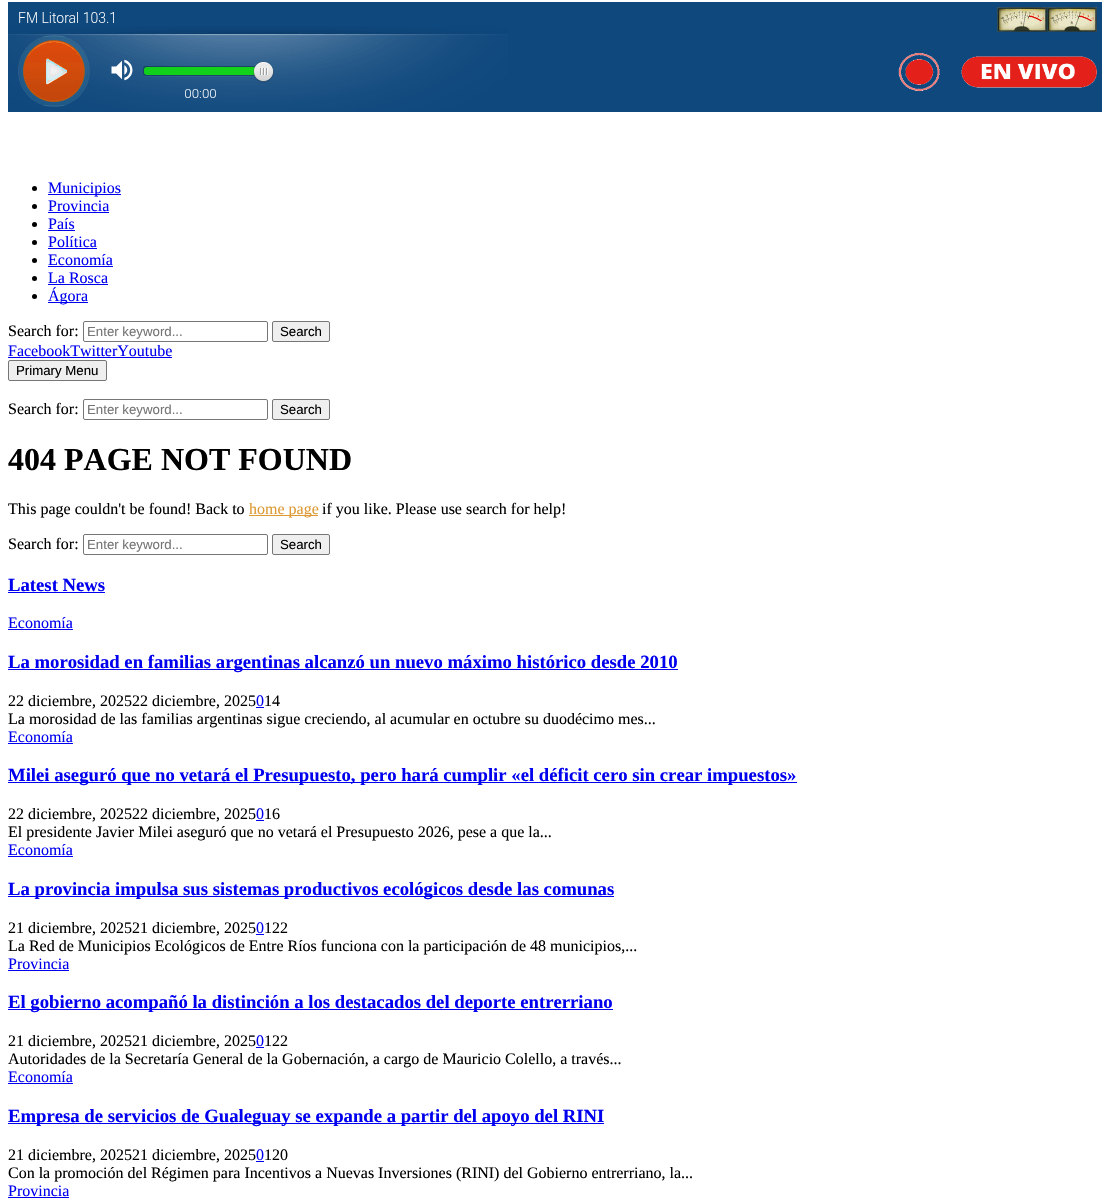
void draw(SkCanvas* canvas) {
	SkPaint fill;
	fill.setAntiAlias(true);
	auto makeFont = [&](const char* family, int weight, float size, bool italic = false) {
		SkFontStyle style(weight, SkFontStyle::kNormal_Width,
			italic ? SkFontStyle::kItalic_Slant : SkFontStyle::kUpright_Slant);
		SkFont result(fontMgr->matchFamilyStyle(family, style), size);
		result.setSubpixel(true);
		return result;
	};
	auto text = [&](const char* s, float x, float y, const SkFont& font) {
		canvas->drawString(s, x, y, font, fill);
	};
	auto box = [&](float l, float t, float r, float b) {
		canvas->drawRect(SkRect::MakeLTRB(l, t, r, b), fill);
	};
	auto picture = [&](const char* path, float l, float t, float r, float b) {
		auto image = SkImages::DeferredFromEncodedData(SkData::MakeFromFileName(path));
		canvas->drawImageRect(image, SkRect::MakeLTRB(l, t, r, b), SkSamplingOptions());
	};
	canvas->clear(0xFFFFFFFF);
	picture("image0.png", 8, 2, 1102, 112);
	fill.setColor(0xFF000000);
	canvas->drawCircle(34.5f, 188.5f, 2.5f, fill);
	fill.setColor(0xFF0000EE);
	box(48, 194, 121, 195);
	fill.setColor(0xFF000000);
	canvas->drawCircle(34.5f, 206.5f, 2.5f, fill);
	fill.setColor(0xFF0000EE);
	box(48, 212, 109, 213);
	fill.setColor(0xFF000000);
	canvas->drawCircle(34.5f, 224.5f, 2.5f, fill);
	fill.setColor(0xFF0000EE);
	box(48, 230, 75, 231);
	fill.setColor(0xFF000000);
	canvas->drawCircle(34.5f, 242.5f, 2.5f, fill);
	fill.setColor(0xFF0000EE);
	box(48, 248, 97, 249);
	fill.setColor(0xFF000000);
	canvas->drawCircle(34.5f, 260.5f, 2.5f, fill);
	fill.setColor(0xFF0000EE);
	box(48, 266, 113, 267);
	fill.setColor(0xFF000000);
	canvas->drawCircle(34.5f, 278.5f, 2.5f, fill);
	fill.setColor(0xFF0000EE);
	box(48, 284, 108, 285);
	fill.setColor(0xFF000000);
	canvas->drawCircle(34.5f, 296.5f, 2.5f, fill);
	fill.setColor(0xFF0000EE);
	box(48, 302, 88, 303);
	fill.setStyle(SkPaint::kStroke_Style);
	fill.setStrokeWidth(1);
	fill.setColor(0xFF767676);
	canvas->drawRoundRect(SkRect::MakeLTRB(83.5f, 321.5f, 267.5f, 341.5f), 1.5f, 1.5f, fill);
	fill.setStyle(SkPaint::kFill_Style);
	fill.setColor(0xFFEFEFEF);
	canvas->drawRoundRect(SkRect::MakeLTRB(272.5f, 321.5f, 329.5f, 341.5f), 1.5f, 1.5f, fill);
	fill.setStyle(SkPaint::kStroke_Style);
	fill.setColor(0xFF767676);
	canvas->drawRoundRect(SkRect::MakeLTRB(272.5f, 321.5f, 329.5f, 341.5f), 1.5f, 1.5f, fill);
	fill.setStyle(SkPaint::kFill_Style);
	fill.setColor(0xFF0000EE);
	box(8, 357, 172, 358);
	fill.setColor(0xFFEFEFEF);
	canvas->drawRoundRect(SkRect::MakeLTRB(8.5f, 360.5f, 106.5f, 380.5f), 1.5f, 1.5f, fill);
	fill.setStyle(SkPaint::kStroke_Style);
	fill.setColor(0xFF767676);
	canvas->drawRoundRect(SkRect::MakeLTRB(8.5f, 360.5f, 106.5f, 380.5f), 1.5f, 1.5f, fill);
	canvas->drawRoundRect(SkRect::MakeLTRB(83.5f, 399.5f, 267.5f, 419.5f), 1.5f, 1.5f, fill);
	fill.setStyle(SkPaint::kFill_Style);
	fill.setColor(0xFFEFEFEF);
	canvas->drawRoundRect(SkRect::MakeLTRB(272.5f, 399.5f, 329.5f, 419.5f), 1.5f, 1.5f, fill);
	fill.setStyle(SkPaint::kStroke_Style);
	fill.setColor(0xFF767676);
	canvas->drawRoundRect(SkRect::MakeLTRB(272.5f, 399.5f, 329.5f, 419.5f), 1.5f, 1.5f, fill);
	fill.setStyle(SkPaint::kFill_Style);
	fill.setColor(0xFFDD9933);
	box(249, 515, 318, 516);
	fill.setStyle(SkPaint::kStroke_Style);
	fill.setColor(0xFF767676);
	canvas->drawRoundRect(SkRect::MakeLTRB(83.5f, 534.5f, 267.5f, 554.5f), 1.5f, 1.5f, fill);
	fill.setStyle(SkPaint::kFill_Style);
	fill.setColor(0xFFEFEFEF);
	canvas->drawRoundRect(SkRect::MakeLTRB(272.5f, 534.5f, 329.5f, 554.5f), 1.5f, 1.5f, fill);
	fill.setStyle(SkPaint::kStroke_Style);
	fill.setColor(0xFF767676);
	canvas->drawRoundRect(SkRect::MakeLTRB(272.5f, 534.5f, 329.5f, 554.5f), 1.5f, 1.5f, fill);
	fill.setStyle(SkPaint::kFill_Style);
	fill.setColor(0xFF0000EE);
	box(8, 592, 105, 593);
	box(8, 629, 73, 630);
	box(8, 669, 678, 670);
	box(256, 707, 264, 708);
	box(8, 743, 73, 744);
	box(8, 782, 797, 783);
	box(256, 820, 264, 821);
	box(8, 856, 73, 857);
	box(8, 896, 614, 897);
	box(256, 934, 264, 935);
	box(8, 970, 69, 971);
	box(8, 1009, 613, 1010);
	box(256, 1047, 264, 1048);
	box(8, 1083, 73, 1084);
	box(8, 1123, 604, 1124);
	box(256, 1161, 264, 1162);
	box(8, 1197, 69, 1198);
	auto font1 = makeFont("Liberation Serif", 400, 16);
	text("Municipios", 48, 193, font1);
	text("Provincia", 48, 211, font1);
	text("País", 48, 229, font1);
	text("Política", 48, 247, font1);
	text("Economía", 48, 265, font1);
	text("La Rosca", 48, 283, font1);
	text("Ágora", 48, 301, font1);
	fill.setColor(0xFF000000);
	text("Search for:", 8, 336, font1);
	auto font2 = makeFont("Liberation Sans", 400, 13.25f);
	fill.setColor(0xFF757575);
	text("Enter keyword...", 87, 336, font2);
	fill.setColor(0xFF000000);
	text("Search", 280, 336, font2);
	fill.setColor(0xFF0000EE);
	text("FacebookTwitterYoutube", 8, 356, font1);
	fill.setColor(0xFF000000);
	text("Primary Menu", 16, 375, font2);
	text("Search for:", 8, 414, font1);
	fill.setColor(0xFF757575);
	text("Enter keyword...", 87, 414, font2);
	fill.setColor(0xFF000000);
	text("Search", 280, 414, font2);
	auto font3 = makeFont("Liberation Serif", 700, 32);
	text("404 PAGE NOT FOUND", 8, 470, font3);
	text("This page couldn't be found! Back to", 8, 514, font1);
	fill.setColor(0xFFDD9933);
	text("home page", 249, 514, font1);
	fill.setColor(0xFF000000);
	text("if you like. Please use search for help!", 322, 514, font1);
	text("Search for:", 8, 549, font1);
	fill.setColor(0xFF757575);
	text("Enter keyword...", 87, 549, font2);
	fill.setColor(0xFF000000);
	text("Search", 280, 549, font2);
	auto font4 = makeFont("Liberation Serif", 700, 18.7f);
	fill.setColor(0xFF0000EE);
	text("Latest News", 8, 591, font4);
	text("Economía", 8, 628, font1);
	text("La morosidad en familias argentinas alcanzó un nuevo máximo histórico desde 2010", 8, 668, font4);
	fill.setColor(0xFF000000);
	text("22 diciembre, 202522 diciembre, 2025", 8, 706, font1);
	fill.setColor(0xFF0000EE);
	text("0", 256, 706, font1);
	fill.setColor(0xFF000000);
	text("14", 264, 706, font1);
	text("La morosidad de las familias argentinas sigue creciendo, al acumular en octubre su duodécimo mes...", 8, 724, font1);
	fill.setColor(0xFF0000EE);
	text("Economía", 8, 742, font1);
	text("Milei aseguró que no vetará el Presupuesto, pero hará cumplir «el déficit cero sin crear impuestos»", 8, 781, font4);
	fill.setColor(0xFF000000);
	text("22 diciembre, 202522 diciembre, 2025", 8, 819, font1);
	fill.setColor(0xFF0000EE);
	text("0", 256, 819, font1);
	fill.setColor(0xFF000000);
	text("16", 264, 819, font1);
	text("El presidente Javier Milei aseguró que no vetará el Presupuesto 2026, pese a que la...", 8, 837, font1);
	fill.setColor(0xFF0000EE);
	text("Economía", 8, 855, font1);
	text("La provincia impulsa sus sistemas productivos ecológicos desde las comunas", 8, 895, font4);
	fill.setColor(0xFF000000);
	text("21 diciembre, 202521 diciembre, 2025", 8, 933, font1);
	fill.setColor(0xFF0000EE);
	text("0", 256, 933, font1);
	fill.setColor(0xFF000000);
	text("122", 264, 933, font1);
	text("La Red de Municipios Ecológicos de Entre Ríos funciona con la participación de 48 municipios,...", 8, 951, font1);
	fill.setColor(0xFF0000EE);
	text("Provincia", 8, 969, font1);
	text("El gobierno acompañó la distinción a los destacados del deporte entrerriano", 8, 1008, font4);
	fill.setColor(0xFF000000);
	text("21 diciembre, 202521 diciembre, 2025", 8, 1046, font1);
	fill.setColor(0xFF0000EE);
	text("0", 256, 1046, font1);
	fill.setColor(0xFF000000);
	text("122", 264, 1046, font1);
	text("Autoridades de la Secretaría General de la Gobernación, a cargo de Mauricio Colello, a través...", 8, 1064, font1);
	fill.setColor(0xFF0000EE);
	text("Economía", 8, 1082, font1);
	text("Empresa de servicios de Gualeguay se expande a partir del apoyo del RINI", 8, 1122, font4);
	fill.setColor(0xFF000000);
	text("21 diciembre, 202521 diciembre, 2025", 8, 1160, font1);
	fill.setColor(0xFF0000EE);
	text("0", 256, 1160, font1);
	fill.setColor(0xFF000000);
	text("120", 264, 1160, font1);
	text("Con la promoción del Régimen para Incentivos a Nuevas Inversiones (RINI) del Gobierno entrerriano, la...", 8, 1178, font1);
	fill.setColor(0xFF0000EE);
	text("Provincia", 8, 1196, font1);
}
